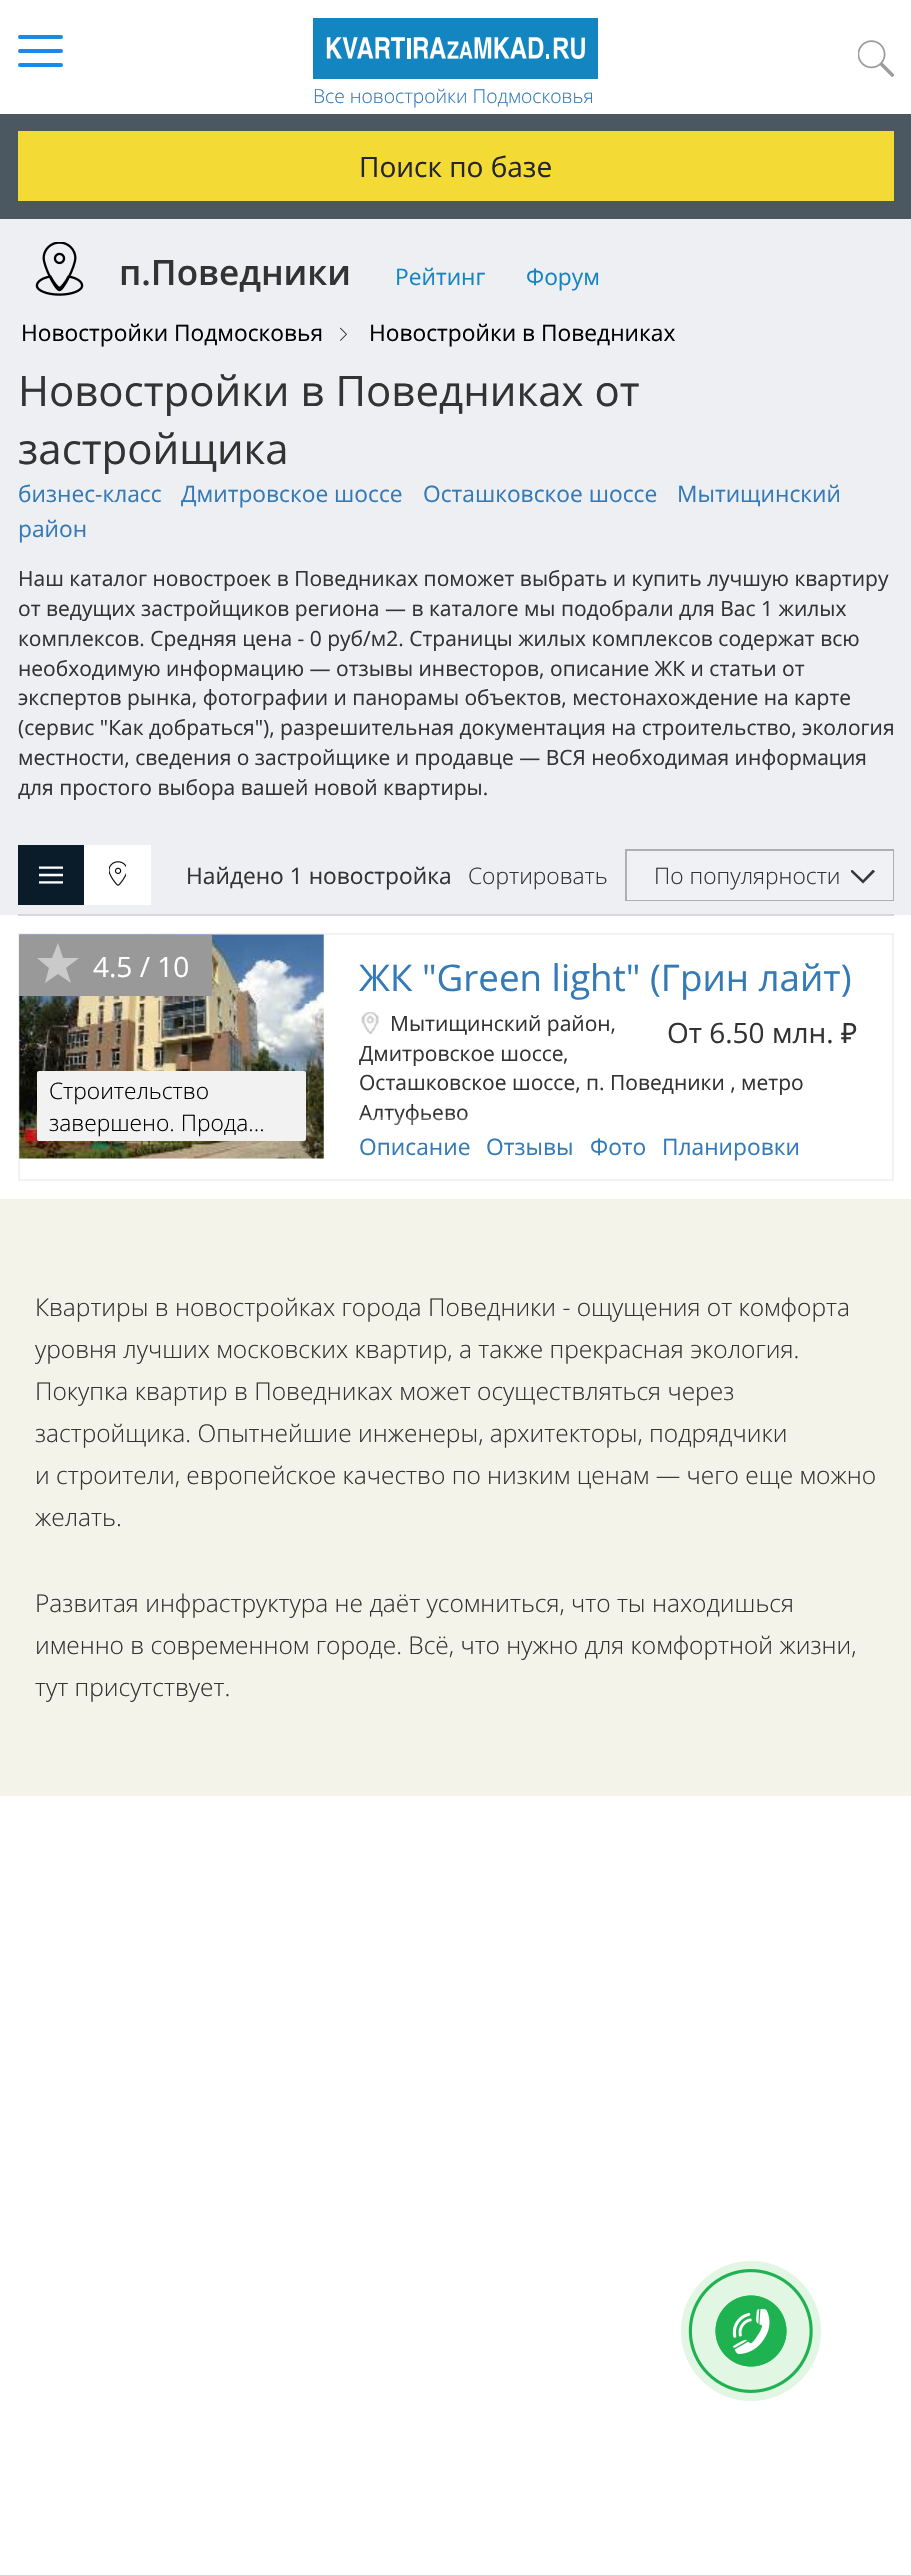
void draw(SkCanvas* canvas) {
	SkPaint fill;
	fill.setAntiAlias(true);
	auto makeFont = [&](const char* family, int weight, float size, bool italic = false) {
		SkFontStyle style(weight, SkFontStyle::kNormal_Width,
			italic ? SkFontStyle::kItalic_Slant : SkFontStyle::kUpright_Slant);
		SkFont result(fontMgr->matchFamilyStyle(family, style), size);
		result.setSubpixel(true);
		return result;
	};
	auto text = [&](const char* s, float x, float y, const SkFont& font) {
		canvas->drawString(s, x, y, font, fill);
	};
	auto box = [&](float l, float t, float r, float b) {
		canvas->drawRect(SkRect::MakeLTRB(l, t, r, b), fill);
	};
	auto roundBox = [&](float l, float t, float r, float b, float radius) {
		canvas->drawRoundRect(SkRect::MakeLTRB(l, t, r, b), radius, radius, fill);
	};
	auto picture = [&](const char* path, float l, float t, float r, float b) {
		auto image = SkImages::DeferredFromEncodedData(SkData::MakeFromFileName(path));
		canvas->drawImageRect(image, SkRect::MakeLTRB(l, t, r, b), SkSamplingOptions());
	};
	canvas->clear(0xFFFFFFFF);
	fill.setColor(0xFF1B89E7);
	roundBox(18, 35, 63, 39, 2);
	roundBox(18, 49, 63, 53, 2);
	roundBox(18, 63, 63, 67, 2);
	picture("image0.png", 858, 40, 894, 77);
	picture("image1.png", 313, 18, 598, 79);
	fill.setColor(0xFF4B5761);
	box(0, 114, 911, 219);
	fill.setColor(0xFFF3DA34);
	box(18, 131, 894, 201);
	fill.setColor(0xFFEDEFF2);
	box(0, 219, 911, 915);
	picture("image2.png", 35, 242, 84, 296);
	picture("image3.png", 340, 327, 347, 341);
	fill.setColor(0xFFD7D7D7);
	box(18, 914, 894, 916);
	fill.setColor(0xFF0A1B29);
	box(18, 845, 84, 905);
	picture("image4.png", 39, 866, 63, 884);
	fill.setColor(0xFFFFFFFF);
	box(84, 845, 151, 905);
	picture("image5.png", 109, 861, 126, 886);
	fill.setStyle(SkPaint::kStroke_Style);
	fill.setStrokeWidth(2);
	fill.setColor(0xFFAFAFAF);
	canvas->drawRect(SkRect::MakeLTRB(626, 850, 893, 900), fill);
	fill.setStyle(SkPaint::kFill_Style);
	fill.setColor(0xFFF0F1F5);
	box(627, 851, 893, 900);
	canvas->save();
	canvas->clipRect(SkRect::MakeLTRB(851, 870, 875, 884));
	fill.setColor(0xFF363636);
	canvas->drawPath(SkPathBuilder(SkPathFillType::kEvenOdd).moveTo(873, 869.5f).lineTo(863, 880).lineTo(852, 869.5f).lineTo(850.5f, 871.5f).lineTo(863, 883.5f).lineTo(875, 871.5f).close().detach(), fill);
	canvas->restore();
	fill.setStyle(SkPaint::kStroke_Style);
	fill.setColor(0xFFF2F2F2);
	canvas->drawRect(SkRect::MakeLTRB(19, 934, 893, 1180), fill);
	picture("image6.png", 19, 934, 324, 1159);
	fill.setStyle(SkPaint::kFill_Style);
	fill.setColor(0xFF999999);
	box(19, 935, 212, 996);
	fill.setColor(0xFFCACACA);
	canvas->drawPath(SkPathBuilder(SkPathFillType::kEvenOdd).moveTo(79, 958).lineTo(63, 958).lineTo(58, 943).lineTo(52, 958).lineTo(37, 958).lineTo(49, 968).lineTo(45, 983).lineTo(58, 974).lineTo(71, 983).lineTo(66, 968).close().detach(), fill);
	fill.setColor(0xFFF2F2F2);
	roundBox(37, 1071, 306, 1141, 2);
	picture("image7.png", 361, 1012, 379, 1034);
	fill.setColor(0xFFF4F3E9);
	box(0, 1199, 911, 1796);
	fill.setColor(0xFFE1F6E3);
	canvas->drawCircle(751, 2331, 70, fill);
	picture("image8.png", 688, 2269, 813, 2393);
	auto font1 = makeFont("Open Sans", 300, 19.25f);
	fill.setColor(0xFF337AB7);
	text("Все новостройки Подмосковья", 313, 103, font1);
	auto font2 = makeFont("Open Sans", 400, 28);
	fill.setColor(0xFF252430);
	text("Поиск по базе", 359, 177, font2);
	auto font3 = makeFont("Open Sans", 600, 35);
	fill.setColor(0xFF333333);
	text("п.Поведники", 119, 285, font3);
	auto font4 = makeFont("Open Sans", 400, 22.75f);
	fill.setColor(0xFF1385C1);
	text("Рейтинг", 395, 285, font4);
	text("Форум", 526, 285, font4);
	fill.setColor(0xFF000000);
	text("Новостройки Подмосковья", 21, 341, font4);
	text("Новостройки в Поведниках", 369, 341, font4);
	auto font5 = makeFont("Open Sans", 400, 42);
	fill.setColor(0xFF333333);
	text("Новостройки в Поведниках от", 18, 406, font5);
	text("застройщика", 18, 464, font5);
	fill.setColor(0xFF337AB7);
	text("бизнес-класс", 18, 502, font4);
	text("Дмитровское шоссе", 181, 502, font4);
	text("Осташковское шоссе", 423, 502, font4);
	text("Мытищинский", 677, 502, font4);
	text("район", 18, 537, font4);
	auto font6 = makeFont("Open Sans", 400, 21);
	fill.setColor(0xFF333333);
	text("Наш каталог новостроек в Поведниках поможет выбрать и купить лучшую квартиру", 18, 586, font6);
	text("от ведущих застройщиков региона — в каталоге мы подобрали для Вас 1 жилых", 18, 616, font6);
	text("комплексов. Средняя цена - 0 руб/м2. Страницы жилых комплексов содержат всю", 18, 646, font6);
	text("необходимую информацию — отзывы инвесторов, описание ЖК и статьи от", 18, 676, font6);
	text("экспертов рынка, фотографии и панорамы объектов, местонахождение на карте", 18, 705, font6);
	text("(сервис \"Как добраться\"), разрешительная документация на строительство, экология", 18, 735, font6);
	text("местности, сведения о застройщике и продавце — ВСЯ необходимая информация", 18, 765, font6);
	text("для простого выбора вашей новой квартиры.", 18, 795, font6);
	text("Найдено 1 новостройка", 186, 884, font4);
	auto font7 = makeFont("Open Sans", 300, 22.75f);
	text("Сортировать", 468, 884, font7);
	text("По популярности", 654, 884, font7);
	fill.setColor(0xFFFFFFFF);
	text("4.5 / 10", 93, 977, font2);
	fill.setColor(0xFF000000);
	text("Строительство", 49, 1099, font7);
	text("завершено. Прода...", 49, 1131, font7);
	auto font8 = makeFont("Open Sans", 400, 36.75f);
	fill.setColor(0xFF337AB7);
	text("ЖК \"Green light\" (Грин лайт)", 359, 991, font8);
	fill.setColor(0xFF333333);
	text("Мытищинский район,", 390, 1031, font6);
	canvas->save();
	canvas->clipRect(SkRect::MakeLTRB(359, 952, 858, 1131));
	text("Дмитровское шоссе", 359, 1061, font6);
	canvas->restore();
	text(",", 563, 1061, font6);
	text("Осташковское шоссе, п. Поведники , метро", 359, 1090, font6);
	text("Алтуфьево", 359, 1120, font6);
	text("От 6.50 млн.", 667, 1043, font2);
	auto font9 = makeFont("Noto Sans", 400, 28);
	text("₽", 841, 1043, font9);
	{
		const SkColor colors[] = {0x3DFFFFFF, 0xC7FFFFFF};
		const float stops[] = {0.7f, 1};
		const SkPoint ends[] = {{608, 1117}, {608, 1131}};
		fill.setShader(SkGradientShader::MakeLinear(ends, colors, stops, 2, SkTileMode::kClamp));
		fill.setAlpha(255);
	}
	box(359, 1117, 467, 1126);
	fill.setShader(nullptr);
	fill.setColor(0xFF337AB7);
	text("Описание", 359, 1155, font4);
	text("Отзывы", 486, 1155, font4);
	text("Фото", 590, 1155, font4);
	text("Планировки", 662, 1155, font4);
	auto font10 = makeFont("Open Sans", 300, 24.5f);
	fill.setColor(0xFF333333);
	text("Квартиры в новостройках города Поведники - ощущения от комфорта", 35, 1316, font10);
	text("уровня лучших московских квартир, а также прекрасная экология.", 35, 1358, font10);
	text("Покупка квартир в Поведниках может осуществляться через", 35, 1400, font10);
	text("застройщика. Опытнейшие инженеры, архитекторы, подрядчики", 35, 1442, font10);
	text("и строители, европейское качество по низким ценам — чего еще можно", 35, 1484, font10);
	text("желать.", 35, 1526, font10);
	text("Развитая инфраструктура не даёт усомниться, что ты находишься", 35, 1612, font10);
	text("именно в современном городе. Всё, что нужно для комфортной жизни,", 35, 1654, font10);
	text("тут присутствует.", 35, 1696, font10);
}
